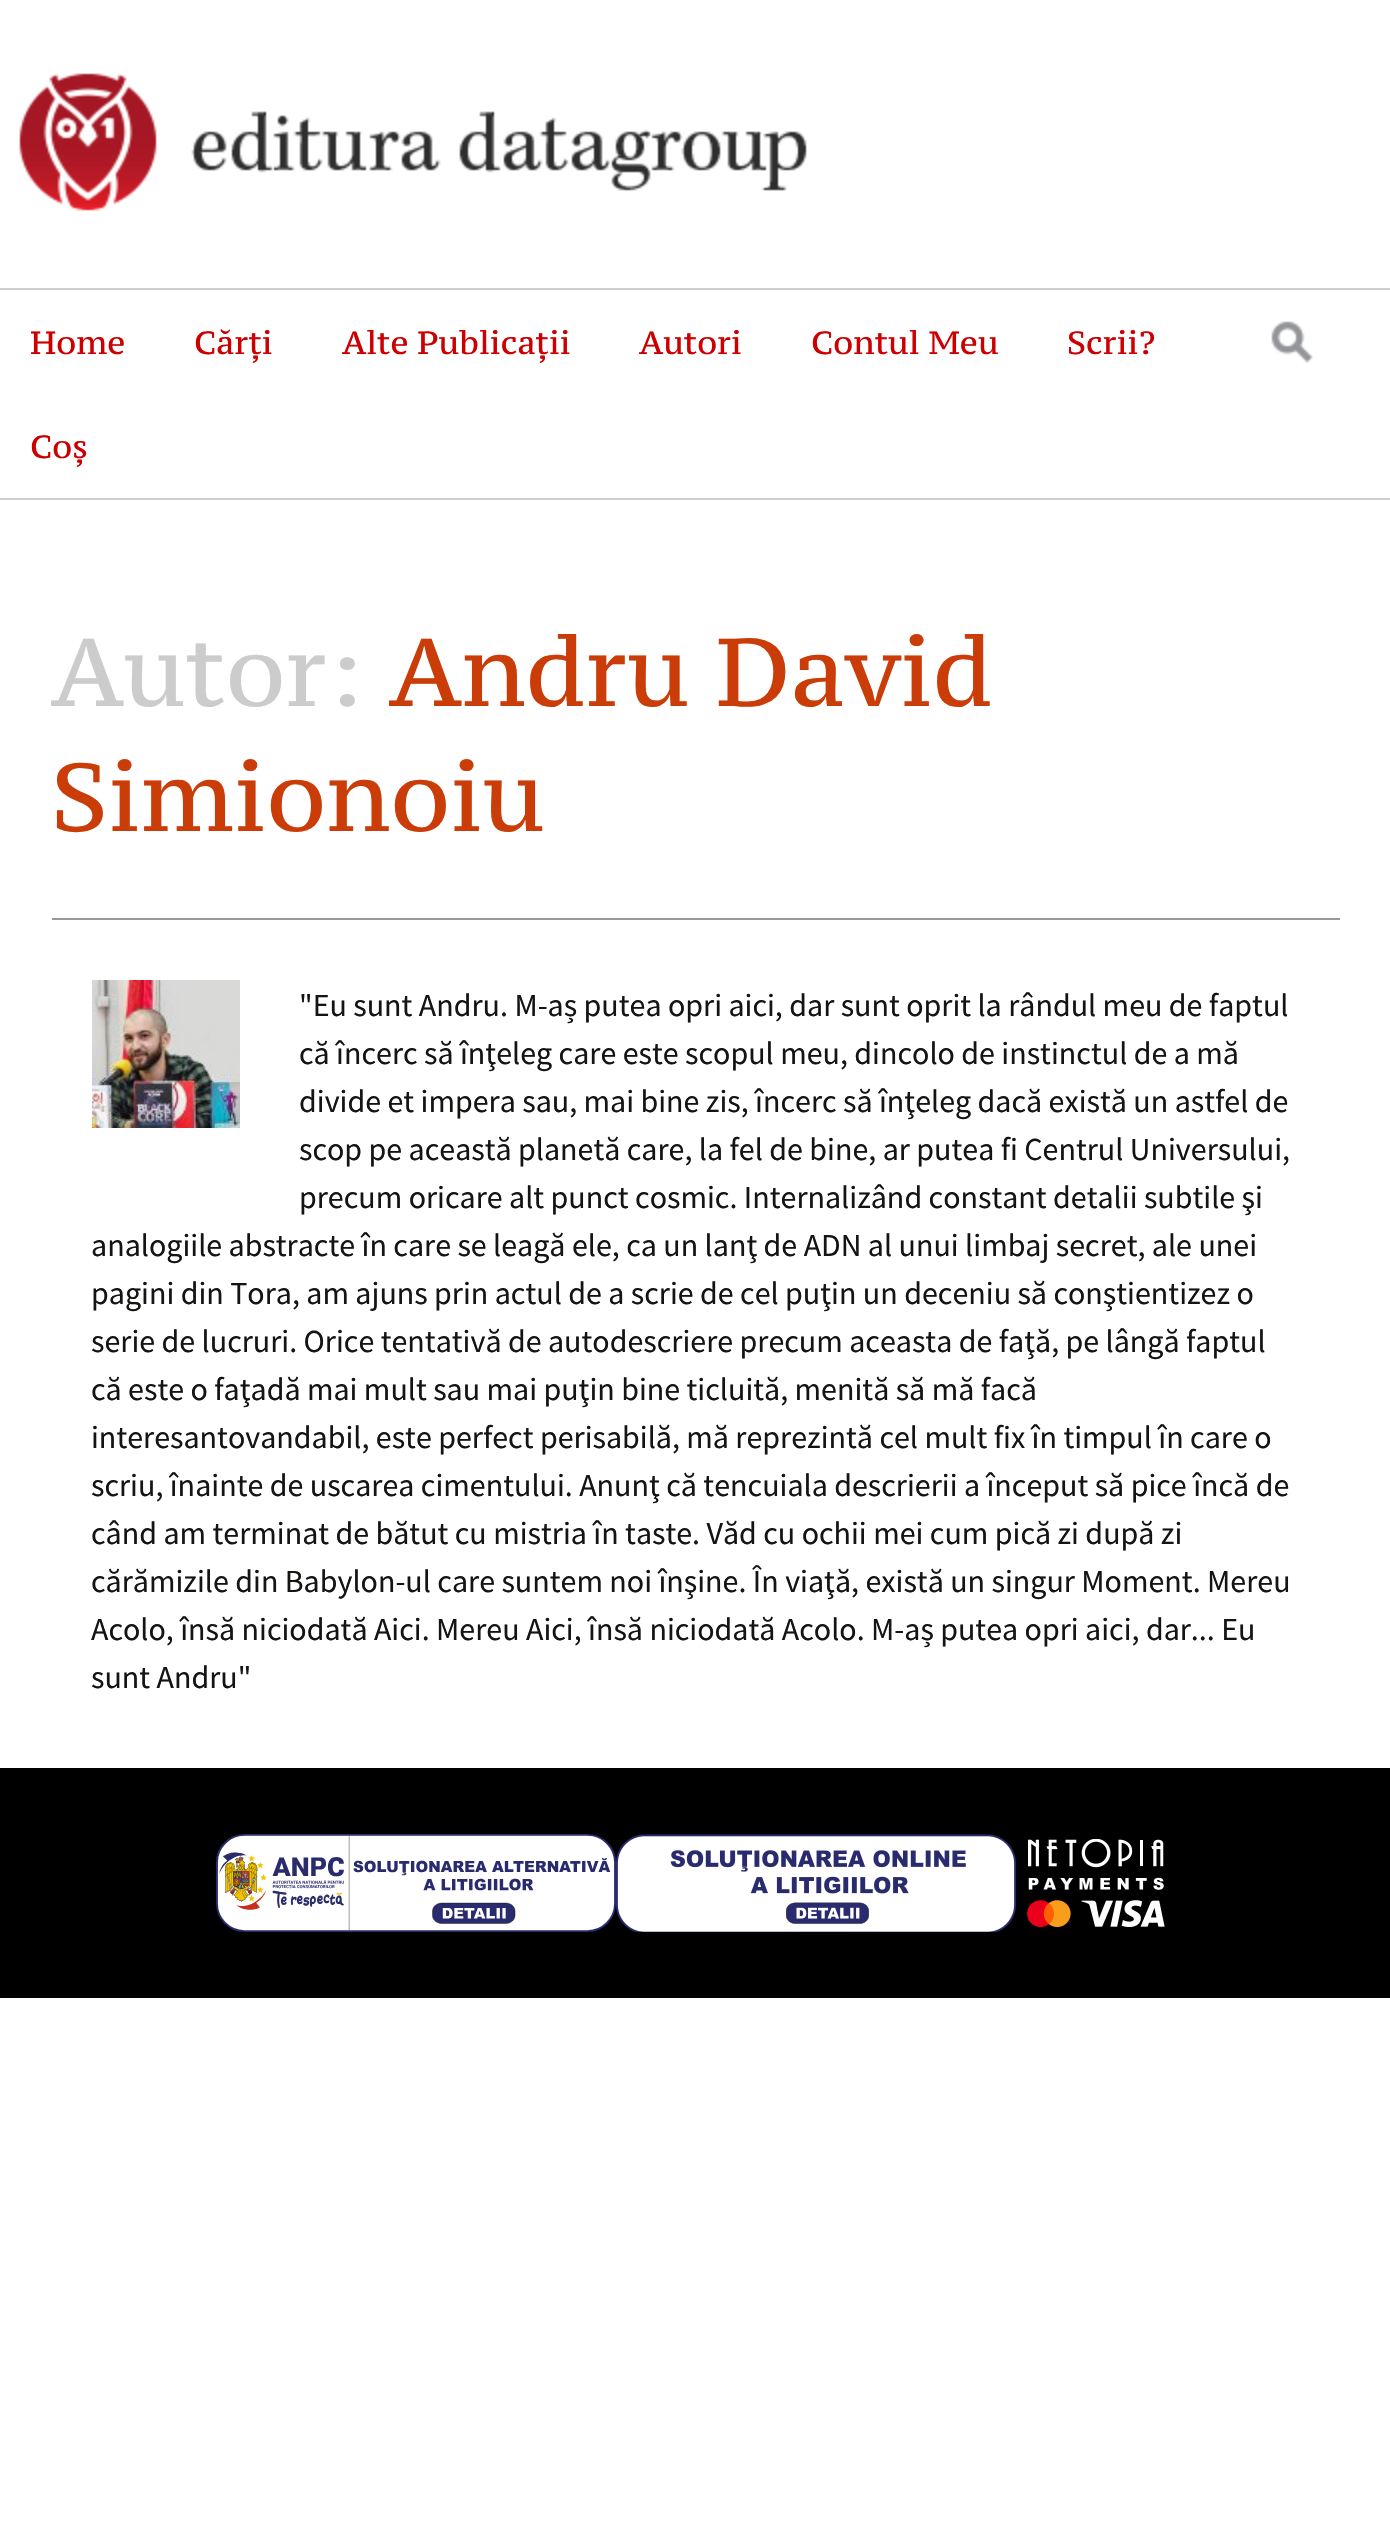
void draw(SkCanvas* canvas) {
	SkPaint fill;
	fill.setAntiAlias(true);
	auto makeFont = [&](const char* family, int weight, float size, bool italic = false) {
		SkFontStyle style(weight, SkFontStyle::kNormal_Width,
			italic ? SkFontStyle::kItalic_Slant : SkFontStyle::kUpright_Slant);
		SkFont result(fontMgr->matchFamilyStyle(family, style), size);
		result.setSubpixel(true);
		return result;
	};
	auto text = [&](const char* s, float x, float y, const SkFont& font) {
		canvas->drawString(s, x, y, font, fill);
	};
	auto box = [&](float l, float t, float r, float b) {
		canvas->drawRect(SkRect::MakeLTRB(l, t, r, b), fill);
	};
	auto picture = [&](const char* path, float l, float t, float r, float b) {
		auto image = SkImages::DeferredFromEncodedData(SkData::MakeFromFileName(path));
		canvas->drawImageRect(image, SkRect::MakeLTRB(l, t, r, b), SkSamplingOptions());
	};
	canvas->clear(0xFFFFFFFF);
	picture("image0.png", 19, 73, 807, 211);
	fill.setColor(0xFFCFCFCF);
	box(0, 288, 1390, 290);
	box(0, 498, 1390, 500);
	picture("image1.png", 1271, 321, 1313, 363);
	fill.setColor(0xFF999999);
	box(52, 918, 1340, 920);
	picture("image2.png", 92, 980, 240, 1128);
	fill.setColor(0xFF000000);
	box(0, 1768, 1390, 1998);
	picture("image3.png", 216, 1834, 616, 1932);
	picture("image4.png", 616, 1834, 1016, 1932);
	picture("image5.png", 1027, 1839, 1165, 1927);
	auto font1 = makeFont("PT Serif Caption", 400, 32);
	fill.setColor(0xFFCC0000);
	text("Home", 30, 354, font1);
	text("Cărți", 194, 354, font1);
	text("Alte Publicații", 342, 354, font1);
	text("Autori", 639, 354, font1);
	text("Contul Meu", 811, 354, font1);
	text("Scrii?", 1067, 354, font1);
	text("Coș", 30, 458, font1);
	auto font2 = makeFont("PT Serif Caption", 400, 96);
	fill.setColor(0xFFCCCCCC);
	text("Autor:", 51, 706, font2);
	fill.setColor(0xFFCA3C08);
	text("Andru David", 389, 706, font2);
	text("Simionoiu", 51, 831, font2);
	auto font3 = makeFont("Source Sans Pro", 400, 32);
	fill.setColor(0xFF141412);
	text("\"Eu sunt Andru. M-aș putea opri aici, dar sunt oprit la rândul meu de faptul", 299, 1016, font3);
	text("că încerc să înţeleg care este scopul meu, dincolo de instinctul de a mă", 299, 1064, font3);
	text("divide et impera sau, mai bine zis, încerc să înţeleg dacă există un astfel de", 299, 1112, font3);
	text("scop pe această planetă care, la fel de bine, ar putea fi Centrul Universului,", 299, 1160, font3);
	text("precum oricare alt punct cosmic. Internalizând constant detalii subtile şi", 299, 1208, font3);
	text("analogiile abstracte în care se leagă ele, ca un lanţ de ADN al unui limbaj secret, ale unei", 91, 1256, font3);
	text("pagini din Tora, am ajuns prin actul de a scrie de cel puţin un deceniu să conştientizez o", 91, 1304, font3);
	text("serie de lucruri. Orice tentativă de autodescriere precum aceasta de faţă, pe lângă faptul", 91, 1352, font3);
	text("că este o faţadă mai mult sau mai puţin bine ticluită, menită să mă facă", 91, 1400, font3);
	text("interesantovandabil, este perfect perisabilă, mă reprezintă cel mult fix în timpul în care o", 91, 1448, font3);
	text("scriu, înainte de uscarea cimentului. Anunţ că tencuiala descrierii a început să pice încă de", 91, 1496, font3);
	text("când am terminat de bătut cu mistria în taste. Văd cu ochii mei cum pică zi după zi", 91, 1544, font3);
	text("cărămizile din Babylon-ul care suntem noi înşine. În viaţă, există un singur Moment. Mereu", 91, 1592, font3);
	text("Acolo, însă niciodată Aici. Mereu Aici, însă niciodată Acolo. M-aș putea opri aici, dar... Eu", 91, 1640, font3);
	text("sunt Andru\"", 91, 1688, font3);
}
